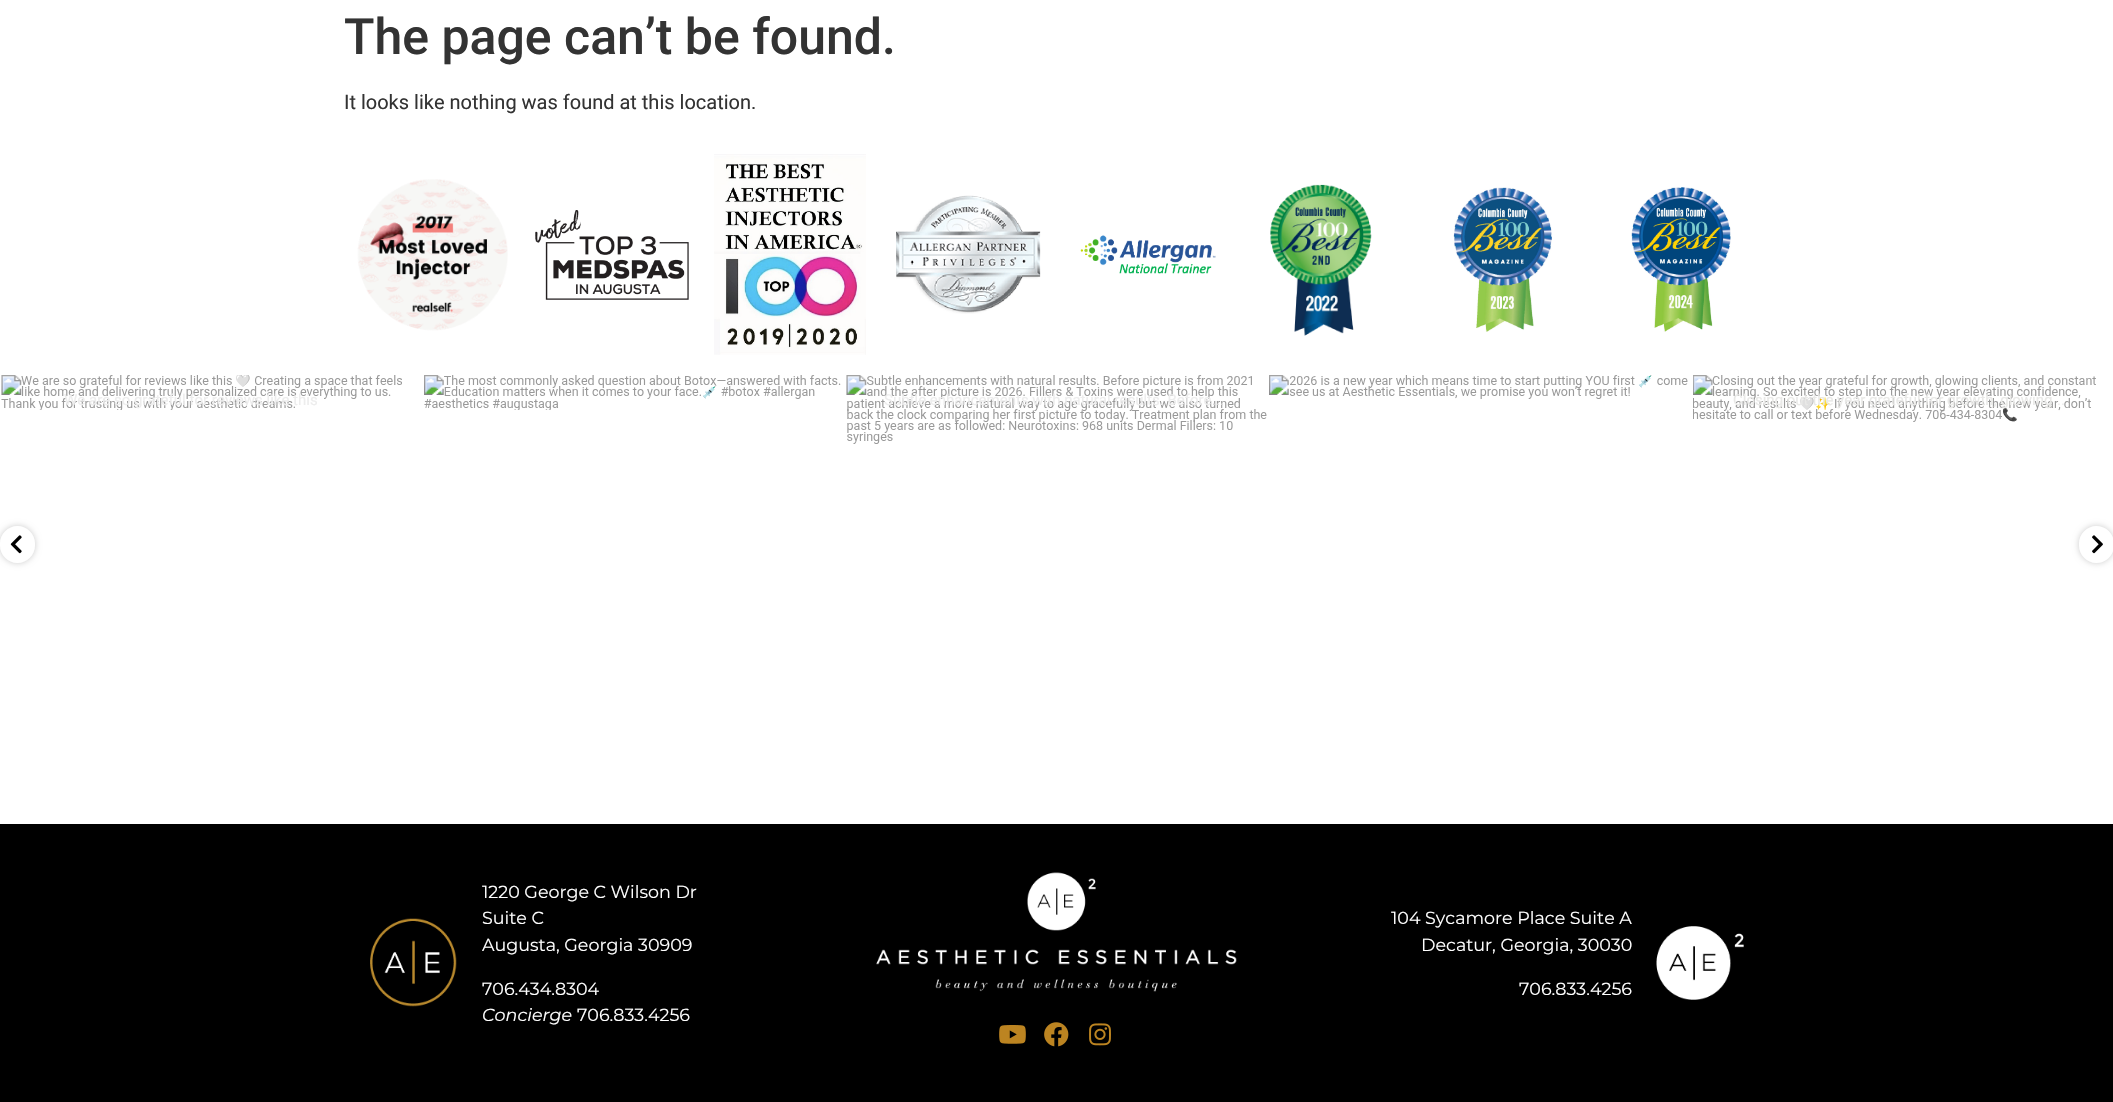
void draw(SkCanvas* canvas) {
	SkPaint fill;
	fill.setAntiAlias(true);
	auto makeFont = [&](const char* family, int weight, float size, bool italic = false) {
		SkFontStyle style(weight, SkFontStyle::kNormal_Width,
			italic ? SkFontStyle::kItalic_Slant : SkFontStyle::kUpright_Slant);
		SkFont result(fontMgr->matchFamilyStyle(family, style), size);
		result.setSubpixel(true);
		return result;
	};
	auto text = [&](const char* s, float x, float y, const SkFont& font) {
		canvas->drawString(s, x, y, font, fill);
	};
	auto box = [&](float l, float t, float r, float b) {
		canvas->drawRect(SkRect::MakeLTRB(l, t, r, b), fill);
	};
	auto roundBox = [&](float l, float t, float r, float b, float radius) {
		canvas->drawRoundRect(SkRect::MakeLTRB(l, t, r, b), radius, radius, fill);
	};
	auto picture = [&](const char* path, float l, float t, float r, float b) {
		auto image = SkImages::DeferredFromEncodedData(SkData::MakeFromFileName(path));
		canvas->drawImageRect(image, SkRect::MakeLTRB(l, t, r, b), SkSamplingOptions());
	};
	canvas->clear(0xFFFFFFFF);
	picture("image0.png", 357, 179, 508, 331);
	picture("image1.png", 535, 210, 689, 300);
	picture("image2.png", 714, 154, 866, 355);
	picture("image3.png", 896, 195, 1041, 314);
	picture("image4.png", 1080, 235, 1216, 274);
	picture("image5.png", 1270, 184, 1372, 336);
	picture("image6.png", 1453, 187, 1552, 332);
	picture("image7.png", 1631, 187, 1731, 332);
	picture("image8.png", 424, 375, 841, 410);
	picture("image9.png", 1269, 375, 1688, 399);
	picture("image10.png", 1, 375, 402, 410);
	picture("image11.png", 846, 375, 1267, 444);
	picture("image12.png", 1693, 375, 2096, 422);
	canvas->save();
	canvas->clipPath(SkPathBuilder(SkPathFillType::kEvenOdd).moveTo(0, 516).lineTo(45, 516).lineTo(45, 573).lineTo(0, 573).close().moveTo(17.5f, 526).cubicTo(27, 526, 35, 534, 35, 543.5f).lineTo(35, 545.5f).cubicTo(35, 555, 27, 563, 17.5f, 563).cubicTo(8, 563, 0, 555, 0, 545.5f).lineTo(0, 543.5f).cubicTo(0, 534, 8, 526, 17.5f, 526).close().detach(), true);
	fill.setColor(0x33000000);
	fill.setMaskFilter(SkMaskFilter::MakeBlur(kNormal_SkBlurStyle, 3));
	canvas->drawRoundRect(SkRect::MakeLTRB(0, 526, 35, 563), 17.5f, 17.5f, fill);
	fill.setMaskFilter(nullptr);
	canvas->restore();
	fill.setColor(0x4DFFFFFF);
	roundBox(0, 526, 35, 563, 17.5f);
	picture("image13.png", 10, 535, 22, 554);
	canvas->save();
	canvas->clipPath(SkPathBuilder(SkPathFillType::kEvenOdd).moveTo(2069, 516).lineTo(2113, 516).lineTo(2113, 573).lineTo(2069, 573).close().moveTo(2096.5f, 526).cubicTo(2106, 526, 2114, 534, 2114, 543.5f).lineTo(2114, 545.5f).cubicTo(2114, 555, 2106, 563, 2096.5f, 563).cubicTo(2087, 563, 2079, 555, 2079, 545.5f).lineTo(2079, 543.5f).cubicTo(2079, 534, 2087, 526, 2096.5f, 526).close().detach(), true);
	fill.setColor(0x33000000);
	fill.setMaskFilter(SkMaskFilter::MakeBlur(kNormal_SkBlurStyle, 3));
	canvas->drawRoundRect(SkRect::MakeLTRB(2079, 526, 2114, 563), 17.5f, 17.5f, fill);
	fill.setMaskFilter(nullptr);
	canvas->restore();
	fill.setColor(0x4DFFFFFF);
	roundBox(2079, 526, 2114, 563, 17.5f);
	picture("image14.png", 2092, 535, 2103, 554);
	fill.setColor(0xFF000000);
	box(0, 824, 2113, 1102);
	picture("image15.png", 370, 918, 457, 1007);
	picture("image16.png", 876, 872, 1237, 992);
	picture("image17.png", 999, 1025, 1026, 1044);
	picture("image18.png", 1044, 1022, 1069, 1047);
	picture("image19.png", 1089, 1023, 1111, 1046);
	picture("image20.png", 1656, 926, 1744, 1000);
	auto font1 = makeFont("Roboto", 500, 50);
	fill.setColor(0xFF333333);
	text("The page can’t be found.", 344, 54, font1);
	auto font2 = makeFont("Roboto", 400, 20);
	text("It looks like nothing was found at this location.", 344, 109, font2);
	auto font3 = makeFont("Roboto", 400, 15);
	fill.setColor(0xFFEDEDED);
	text("We are so grateful for reviews like this", 64, 405, font3);
	text("Subtle enhancements with natural results. Before", 884, 405, font3);
	fill.setColor(0xFFD8D8D8);
	text("...", 1212, 405, font3);
	fill.setColor(0xFFE9E9E7);
	text("Closing out the year grateful for growth, glowing", 1733, 405, font3);
	fill.setColor(0xFFEDEDED);
	text("..", 2057, 405, font3);
	auto font4 = makeFont("Montserrat", 400, 17.5f);
	fill.setColor(0xFFFFFFFF);
	text("1220 George C Wilson Dr", 482, 898, font4);
	text("Suite C", 482, 924, font4);
	text("Augusta, Georgia 30909", 482, 951, font4);
	text("706.434.8304", 482, 995, font4);
	auto font5 = makeFont("Montserrat", 400, 17.5f, true);
	text("Concierge", 482, 1021, font5);
	text("706.833.4256", 577, 1021, font4);
	text("104 Sycamore Place Suite A", 1391, 924, font4);
	text("Decatur, Georgia, 30030", 1421, 951, font4);
	text("706.833.4256", 1519, 995, font4);
}
